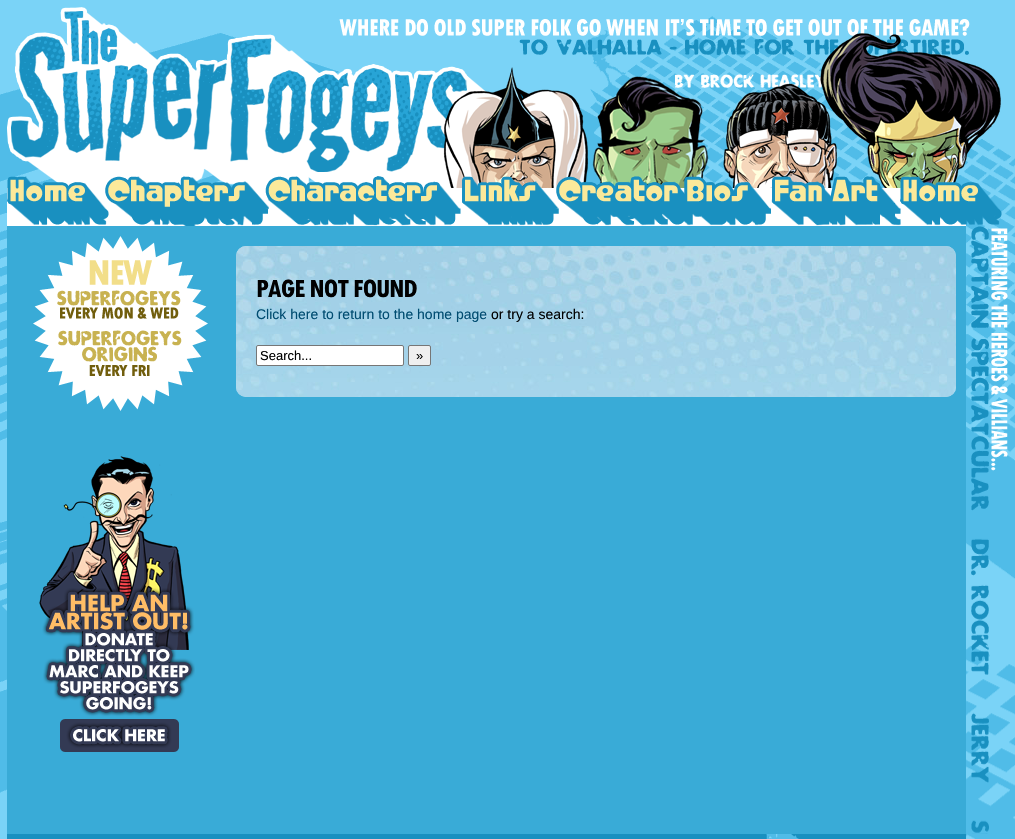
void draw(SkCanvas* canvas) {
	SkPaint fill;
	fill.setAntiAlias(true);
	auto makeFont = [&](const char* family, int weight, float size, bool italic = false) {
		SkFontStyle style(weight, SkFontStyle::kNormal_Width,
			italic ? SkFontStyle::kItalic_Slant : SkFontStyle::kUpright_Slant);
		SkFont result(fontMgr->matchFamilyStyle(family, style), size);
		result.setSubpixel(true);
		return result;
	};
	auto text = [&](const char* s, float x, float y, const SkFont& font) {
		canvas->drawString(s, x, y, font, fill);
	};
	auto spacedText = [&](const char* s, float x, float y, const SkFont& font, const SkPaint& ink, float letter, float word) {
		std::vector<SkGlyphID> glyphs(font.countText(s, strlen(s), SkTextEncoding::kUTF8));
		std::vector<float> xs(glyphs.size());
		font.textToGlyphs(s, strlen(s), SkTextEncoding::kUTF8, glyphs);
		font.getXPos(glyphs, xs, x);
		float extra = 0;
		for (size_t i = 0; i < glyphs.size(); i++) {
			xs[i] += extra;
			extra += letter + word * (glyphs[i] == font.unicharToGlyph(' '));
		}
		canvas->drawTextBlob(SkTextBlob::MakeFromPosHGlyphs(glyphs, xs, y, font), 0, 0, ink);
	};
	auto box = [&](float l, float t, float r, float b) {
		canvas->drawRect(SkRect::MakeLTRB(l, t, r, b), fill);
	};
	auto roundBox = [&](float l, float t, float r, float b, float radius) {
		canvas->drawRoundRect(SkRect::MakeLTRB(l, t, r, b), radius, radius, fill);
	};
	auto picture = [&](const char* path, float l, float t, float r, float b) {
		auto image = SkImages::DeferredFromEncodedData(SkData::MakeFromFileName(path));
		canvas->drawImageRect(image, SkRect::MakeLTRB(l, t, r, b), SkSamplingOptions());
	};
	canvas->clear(0xFF7AD3F7);
	picture("image0.png", 0, 33, 368, 793);
	picture("image1.png", 573, 16, 1015, 839);
	picture("image2.png", 7, 7, 1001, 188);
	fill.setColor(0xFFFFFFFF);
	box(7, 188, 966, 226);
	picture("image3.png", 7, 176, 109, 226);
	picture("image4.png", 105, 176, 269, 226);
	picture("image5.png", 265, 176, 461, 226);
	picture("image6.png", 462, 176, 559, 226);
	picture("image7.png", 556, 176, 771, 226);
	picture("image8.png", 771, 176, 901, 226);
	picture("image9.png", 900, 176, 1002, 226);
	picture("image10.png", 971, 226, 1008, 834);
	fill.setColor(0xFF39ABD7);
	box(7, 226, 966, 834);
	picture("image11.png", 33, 236, 208, 411);
	picture("image12.png", 39, 456, 195, 752);
	fill.setColor(0xFFACDDF1);
	roundBox(236, 246, 956, 397, 10);
	picture("image13.png", 236, 246, 956, 397);
	fill.setColor(0xFFFFFFFF);
	canvas->drawRoundRect(SkRect::MakeLTRB(256.5f, 345.5f, 403.5f, 365.5f), 1.5f, 1.5f, fill);
	fill.setStyle(SkPaint::kStroke_Style);
	fill.setStrokeWidth(1);
	fill.setColor(0xFF767676);
	canvas->drawRoundRect(SkRect::MakeLTRB(256.5f, 345.5f, 403.5f, 365.5f), 1.5f, 1.5f, fill);
	fill.setStyle(SkPaint::kFill_Style);
	fill.setColor(0xFFEFEFEF);
	canvas->drawRoundRect(SkRect::MakeLTRB(408.5f, 345.5f, 430.5f, 365.5f), 1.5f, 1.5f, fill);
	fill.setStyle(SkPaint::kStroke_Style);
	fill.setColor(0xFF767676);
	canvas->drawRoundRect(SkRect::MakeLTRB(408.5f, 345.5f, 430.5f, 365.5f), 1.5f, 1.5f, fill);
	picture("image14.png", 7, 834, 966, 839);
	auto font1 = makeFont("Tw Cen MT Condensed", 700, 28);
	fill.setStyle(SkPaint::kFill_Style);
	fill.setColor(0xFF000000);
	spacedText("PAGE NOT FOUND", 256, 297, font1, fill, -1, 0);
	auto font2 = makeFont("Liberation Sans", 400, 14);
	fill.setColor(0xFF004C71);
	text("Click here to return to the home page", 256, 319, font2);
	fill.setColor(0xFF000000);
	text("or try a search:", 491, 319, font2);
	auto font3 = makeFont("Liberation Sans", 400, 13);
	text("Search...", 260, 360, font3);
	text("»", 416, 360, font3);
}
